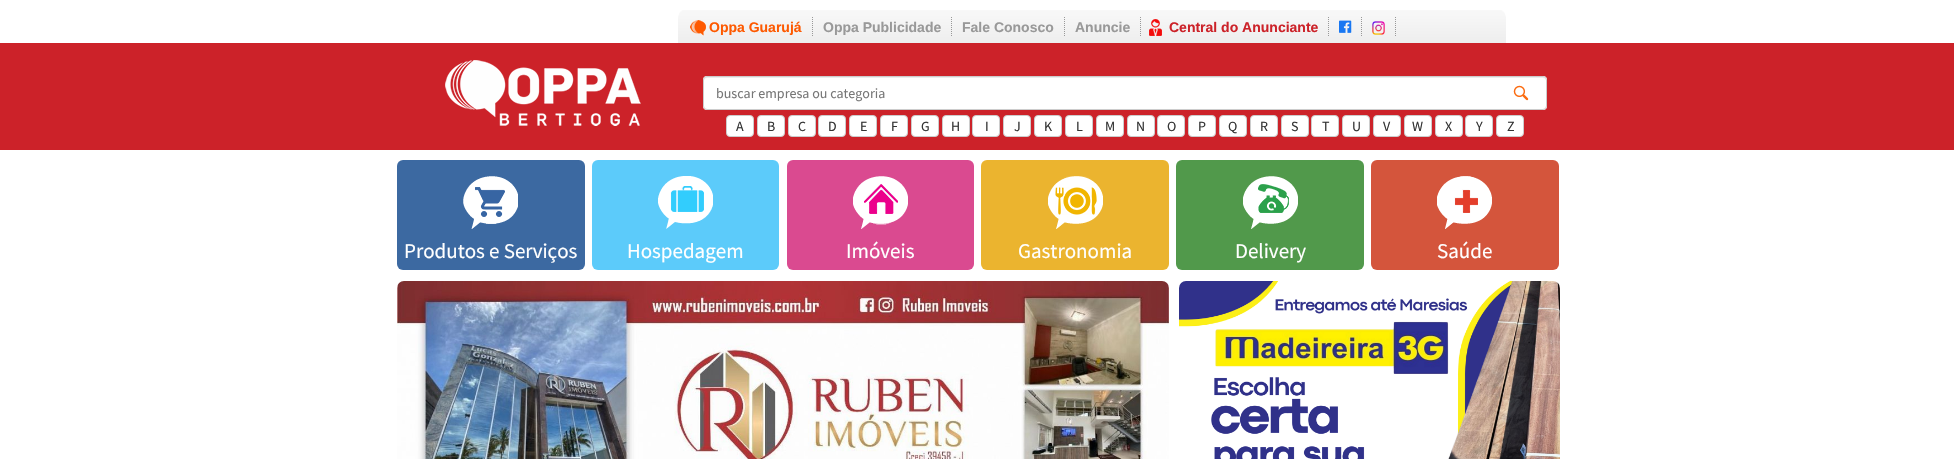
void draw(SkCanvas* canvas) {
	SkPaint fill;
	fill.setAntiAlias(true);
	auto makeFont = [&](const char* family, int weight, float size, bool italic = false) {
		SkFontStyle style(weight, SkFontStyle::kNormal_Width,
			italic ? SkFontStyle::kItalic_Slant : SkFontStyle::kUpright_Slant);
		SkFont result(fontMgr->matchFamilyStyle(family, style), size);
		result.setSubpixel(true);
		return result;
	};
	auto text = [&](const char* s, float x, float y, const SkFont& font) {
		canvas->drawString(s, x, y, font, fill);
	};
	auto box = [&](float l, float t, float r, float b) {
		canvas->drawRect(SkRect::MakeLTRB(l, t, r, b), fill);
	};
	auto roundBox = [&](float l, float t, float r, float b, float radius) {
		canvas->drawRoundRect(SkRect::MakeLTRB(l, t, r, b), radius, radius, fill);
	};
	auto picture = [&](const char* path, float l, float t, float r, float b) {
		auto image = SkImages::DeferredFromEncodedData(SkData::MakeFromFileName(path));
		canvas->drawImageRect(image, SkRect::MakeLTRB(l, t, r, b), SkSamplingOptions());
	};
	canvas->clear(0xFFFFFFFF);
	picture("image0.png", 678, 10, 1506, 43);
	picture("image1.png", 690, 20, 706, 36);
	fill.setStyle(SkPaint::kStroke_Style);
	fill.setStrokeWidth(1);
	fill.setColor(0xFF999999);
	fill.setPathEffect(SkDashPathEffect::Make({{1, 1}}, 0));
	canvas->drawPath(SkPathBuilder().moveTo(812.5f, 17).lineTo(812.5f, 37).detach(), fill);
	fill.setPathEffect(nullptr);
	fill.setPathEffect(SkDashPathEffect::Make({{1, 1}}, 0));
	canvas->drawPath(SkPathBuilder().moveTo(951.5f, 17).lineTo(951.5f, 37).detach(), fill);
	fill.setPathEffect(nullptr);
	fill.setPathEffect(SkDashPathEffect::Make({{1, 1}}, 0));
	canvas->drawPath(SkPathBuilder().moveTo(1064.5f, 17).lineTo(1064.5f, 37).detach(), fill);
	fill.setPathEffect(nullptr);
	fill.setPathEffect(SkDashPathEffect::Make({{1, 1}}, 0));
	canvas->drawPath(SkPathBuilder().moveTo(1140.5f, 17).lineTo(1140.5f, 37).detach(), fill);
	fill.setPathEffect(nullptr);
	picture("image2.png", 1149, 19, 1162, 36);
	fill.setPathEffect(SkDashPathEffect::Make({{1, 1}}, 0));
	canvas->drawPath(SkPathBuilder().moveTo(1328.5f, 17).lineTo(1328.5f, 37).detach(), fill);
	fill.setPathEffect(nullptr);
	fill.setPathEffect(SkDashPathEffect::Make({{1, 1}}, 0));
	canvas->drawPath(SkPathBuilder().moveTo(1361.5f, 17).lineTo(1361.5f, 37).detach(), fill);
	fill.setPathEffect(nullptr);
	picture("image3.png", 1339, 20, 1352, 33);
	fill.setPathEffect(SkDashPathEffect::Make({{1, 1}}, 0));
	canvas->drawPath(SkPathBuilder().moveTo(1395.5f, 17).lineTo(1395.5f, 37).detach(), fill);
	fill.setPathEffect(nullptr);
	picture("image4.png", 1372, 21, 1385, 35);
	fill.setStyle(SkPaint::kFill_Style);
	fill.setColor(0xFFCC2229);
	box(0, 43, 1954, 150);
	picture("image5.png", 445, 60, 641, 126);
	fill.setColor(0xFFFFFFFF);
	roundBox(703, 76, 1547, 110, 4);
	picture("image6.png", 1513, 85, 1529, 101);
	fill.setColor(0xFFECECEC);
	canvas->drawPath(SkPathBuilder().moveTo(707, 78).lineTo(1543, 78).cubicTo(1545, 78, 1546, 79, 1546, 81).cubicTo(1546, 79, 1545, 77, 1543, 77).lineTo(707, 77).cubicTo(705, 77, 704, 79, 704, 81).cubicTo(704, 79, 705, 78, 707, 78).close().detach(), fill);
	fill.setStyle(SkPaint::kStroke_Style);
	fill.setColor(0xFFCCCCCC);
	canvas->drawRoundRect(SkRect::MakeLTRB(703.5f, 76.5f, 1546.5f, 109.5f), 3.5f, 3.5f, fill);
	fill.setStyle(SkPaint::kFill_Style);
	fill.setColor(0xFFFFFFFF);
	canvas->drawRoundRect(SkRect::MakeLTRB(726.5f, 115.5f, 753.5f, 136.5f), 3.5f, 3.5f, fill);
	fill.setStyle(SkPaint::kStroke_Style);
	fill.setColor(0xFFCCCCCC);
	canvas->drawRoundRect(SkRect::MakeLTRB(726.5f, 115.5f, 753.5f, 136.5f), 3.5f, 3.5f, fill);
	fill.setStyle(SkPaint::kFill_Style);
	fill.setColor(0xFFFFFFFF);
	canvas->drawRoundRect(SkRect::MakeLTRB(757.5f, 115.5f, 784.5f, 136.5f), 3.5f, 3.5f, fill);
	fill.setStyle(SkPaint::kStroke_Style);
	fill.setColor(0xFFCCCCCC);
	canvas->drawRoundRect(SkRect::MakeLTRB(757.5f, 115.5f, 784.5f, 136.5f), 3.5f, 3.5f, fill);
	fill.setStyle(SkPaint::kFill_Style);
	fill.setColor(0xFFFFFFFF);
	canvas->drawRoundRect(SkRect::MakeLTRB(788.5f, 115.5f, 815.5f, 136.5f), 3.5f, 3.5f, fill);
	fill.setStyle(SkPaint::kStroke_Style);
	fill.setColor(0xFFCCCCCC);
	canvas->drawRoundRect(SkRect::MakeLTRB(788.5f, 115.5f, 815.5f, 136.5f), 3.5f, 3.5f, fill);
	fill.setStyle(SkPaint::kFill_Style);
	fill.setColor(0xFFFFFFFF);
	canvas->drawRoundRect(SkRect::MakeLTRB(818.5f, 115.5f, 845.5f, 136.5f), 3.5f, 3.5f, fill);
	fill.setStyle(SkPaint::kStroke_Style);
	fill.setColor(0xFFCCCCCC);
	canvas->drawRoundRect(SkRect::MakeLTRB(818.5f, 115.5f, 845.5f, 136.5f), 3.5f, 3.5f, fill);
	fill.setStyle(SkPaint::kFill_Style);
	fill.setColor(0xFFFFFFFF);
	canvas->drawRoundRect(SkRect::MakeLTRB(849.5f, 115.5f, 876.5f, 136.5f), 3.5f, 3.5f, fill);
	fill.setStyle(SkPaint::kStroke_Style);
	fill.setColor(0xFFCCCCCC);
	canvas->drawRoundRect(SkRect::MakeLTRB(849.5f, 115.5f, 876.5f, 136.5f), 3.5f, 3.5f, fill);
	fill.setStyle(SkPaint::kFill_Style);
	fill.setColor(0xFFFFFFFF);
	canvas->drawRoundRect(SkRect::MakeLTRB(880.5f, 115.5f, 907.5f, 136.5f), 3.5f, 3.5f, fill);
	fill.setStyle(SkPaint::kStroke_Style);
	fill.setColor(0xFFCCCCCC);
	canvas->drawRoundRect(SkRect::MakeLTRB(880.5f, 115.5f, 907.5f, 136.5f), 3.5f, 3.5f, fill);
	fill.setStyle(SkPaint::kFill_Style);
	fill.setColor(0xFFFFFFFF);
	canvas->drawRoundRect(SkRect::MakeLTRB(911.5f, 115.5f, 938.5f, 136.5f), 3.5f, 3.5f, fill);
	fill.setStyle(SkPaint::kStroke_Style);
	fill.setColor(0xFFCCCCCC);
	canvas->drawRoundRect(SkRect::MakeLTRB(911.5f, 115.5f, 938.5f, 136.5f), 3.5f, 3.5f, fill);
	fill.setStyle(SkPaint::kFill_Style);
	fill.setColor(0xFFFFFFFF);
	canvas->drawRoundRect(SkRect::MakeLTRB(942.5f, 115.5f, 969.5f, 136.5f), 3.5f, 3.5f, fill);
	fill.setStyle(SkPaint::kStroke_Style);
	fill.setColor(0xFFCCCCCC);
	canvas->drawRoundRect(SkRect::MakeLTRB(942.5f, 115.5f, 969.5f, 136.5f), 3.5f, 3.5f, fill);
	fill.setStyle(SkPaint::kFill_Style);
	fill.setColor(0xFFFFFFFF);
	canvas->drawRoundRect(SkRect::MakeLTRB(972.5f, 115.5f, 999.5f, 136.5f), 3.5f, 3.5f, fill);
	fill.setStyle(SkPaint::kStroke_Style);
	fill.setColor(0xFFCCCCCC);
	canvas->drawRoundRect(SkRect::MakeLTRB(972.5f, 115.5f, 999.5f, 136.5f), 3.5f, 3.5f, fill);
	fill.setStyle(SkPaint::kFill_Style);
	fill.setColor(0xFFFFFFFF);
	canvas->drawRoundRect(SkRect::MakeLTRB(1003.5f, 115.5f, 1030.5f, 136.5f), 3.5f, 3.5f, fill);
	fill.setStyle(SkPaint::kStroke_Style);
	fill.setColor(0xFFCCCCCC);
	canvas->drawRoundRect(SkRect::MakeLTRB(1003.5f, 115.5f, 1030.5f, 136.5f), 3.5f, 3.5f, fill);
	fill.setStyle(SkPaint::kFill_Style);
	fill.setColor(0xFFFFFFFF);
	canvas->drawRoundRect(SkRect::MakeLTRB(1034.5f, 115.5f, 1061.5f, 136.5f), 3.5f, 3.5f, fill);
	fill.setStyle(SkPaint::kStroke_Style);
	fill.setColor(0xFFCCCCCC);
	canvas->drawRoundRect(SkRect::MakeLTRB(1034.5f, 115.5f, 1061.5f, 136.5f), 3.5f, 3.5f, fill);
	fill.setStyle(SkPaint::kFill_Style);
	fill.setColor(0xFFFFFFFF);
	canvas->drawRoundRect(SkRect::MakeLTRB(1065.5f, 115.5f, 1092.5f, 136.5f), 3.5f, 3.5f, fill);
	fill.setStyle(SkPaint::kStroke_Style);
	fill.setColor(0xFFCCCCCC);
	canvas->drawRoundRect(SkRect::MakeLTRB(1065.5f, 115.5f, 1092.5f, 136.5f), 3.5f, 3.5f, fill);
	fill.setStyle(SkPaint::kFill_Style);
	fill.setColor(0xFFFFFFFF);
	canvas->drawRoundRect(SkRect::MakeLTRB(1096.5f, 115.5f, 1123.5f, 136.5f), 3.5f, 3.5f, fill);
	fill.setStyle(SkPaint::kStroke_Style);
	fill.setColor(0xFFCCCCCC);
	canvas->drawRoundRect(SkRect::MakeLTRB(1096.5f, 115.5f, 1123.5f, 136.5f), 3.5f, 3.5f, fill);
	fill.setStyle(SkPaint::kFill_Style);
	fill.setColor(0xFFFFFFFF);
	canvas->drawRoundRect(SkRect::MakeLTRB(1127.5f, 115.5f, 1154.5f, 136.5f), 3.5f, 3.5f, fill);
	fill.setStyle(SkPaint::kStroke_Style);
	fill.setColor(0xFFCCCCCC);
	canvas->drawRoundRect(SkRect::MakeLTRB(1127.5f, 115.5f, 1154.5f, 136.5f), 3.5f, 3.5f, fill);
	fill.setStyle(SkPaint::kFill_Style);
	fill.setColor(0xFFFFFFFF);
	canvas->drawRoundRect(SkRect::MakeLTRB(1157.5f, 115.5f, 1184.5f, 136.5f), 3.5f, 3.5f, fill);
	fill.setStyle(SkPaint::kStroke_Style);
	fill.setColor(0xFFCCCCCC);
	canvas->drawRoundRect(SkRect::MakeLTRB(1157.5f, 115.5f, 1184.5f, 136.5f), 3.5f, 3.5f, fill);
	fill.setStyle(SkPaint::kFill_Style);
	fill.setColor(0xFFFFFFFF);
	canvas->drawRoundRect(SkRect::MakeLTRB(1188.5f, 115.5f, 1215.5f, 136.5f), 3.5f, 3.5f, fill);
	fill.setStyle(SkPaint::kStroke_Style);
	fill.setColor(0xFFCCCCCC);
	canvas->drawRoundRect(SkRect::MakeLTRB(1188.5f, 115.5f, 1215.5f, 136.5f), 3.5f, 3.5f, fill);
	fill.setStyle(SkPaint::kFill_Style);
	fill.setColor(0xFFFFFFFF);
	canvas->drawRoundRect(SkRect::MakeLTRB(1219.5f, 115.5f, 1246.5f, 136.5f), 3.5f, 3.5f, fill);
	fill.setStyle(SkPaint::kStroke_Style);
	fill.setColor(0xFFCCCCCC);
	canvas->drawRoundRect(SkRect::MakeLTRB(1219.5f, 115.5f, 1246.5f, 136.5f), 3.5f, 3.5f, fill);
	fill.setStyle(SkPaint::kFill_Style);
	fill.setColor(0xFFFFFFFF);
	canvas->drawRoundRect(SkRect::MakeLTRB(1250.5f, 115.5f, 1277.5f, 136.5f), 3.5f, 3.5f, fill);
	fill.setStyle(SkPaint::kStroke_Style);
	fill.setColor(0xFFCCCCCC);
	canvas->drawRoundRect(SkRect::MakeLTRB(1250.5f, 115.5f, 1277.5f, 136.5f), 3.5f, 3.5f, fill);
	fill.setStyle(SkPaint::kFill_Style);
	fill.setColor(0xFFFFFFFF);
	canvas->drawRoundRect(SkRect::MakeLTRB(1281.5f, 115.5f, 1308.5f, 136.5f), 3.5f, 3.5f, fill);
	fill.setStyle(SkPaint::kStroke_Style);
	fill.setColor(0xFFCCCCCC);
	canvas->drawRoundRect(SkRect::MakeLTRB(1281.5f, 115.5f, 1308.5f, 136.5f), 3.5f, 3.5f, fill);
	fill.setStyle(SkPaint::kFill_Style);
	fill.setColor(0xFFFFFFFF);
	canvas->drawRoundRect(SkRect::MakeLTRB(1311.5f, 115.5f, 1338.5f, 136.5f), 3.5f, 3.5f, fill);
	fill.setStyle(SkPaint::kStroke_Style);
	fill.setColor(0xFFCCCCCC);
	canvas->drawRoundRect(SkRect::MakeLTRB(1311.5f, 115.5f, 1338.5f, 136.5f), 3.5f, 3.5f, fill);
	fill.setStyle(SkPaint::kFill_Style);
	fill.setColor(0xFFFFFFFF);
	canvas->drawRoundRect(SkRect::MakeLTRB(1342.5f, 115.5f, 1369.5f, 136.5f), 3.5f, 3.5f, fill);
	fill.setStyle(SkPaint::kStroke_Style);
	fill.setColor(0xFFCCCCCC);
	canvas->drawRoundRect(SkRect::MakeLTRB(1342.5f, 115.5f, 1369.5f, 136.5f), 3.5f, 3.5f, fill);
	fill.setStyle(SkPaint::kFill_Style);
	fill.setColor(0xFFFFFFFF);
	canvas->drawRoundRect(SkRect::MakeLTRB(1373.5f, 115.5f, 1400.5f, 136.5f), 3.5f, 3.5f, fill);
	fill.setStyle(SkPaint::kStroke_Style);
	fill.setColor(0xFFCCCCCC);
	canvas->drawRoundRect(SkRect::MakeLTRB(1373.5f, 115.5f, 1400.5f, 136.5f), 3.5f, 3.5f, fill);
	fill.setStyle(SkPaint::kFill_Style);
	fill.setColor(0xFFFFFFFF);
	canvas->drawRoundRect(SkRect::MakeLTRB(1404.5f, 115.5f, 1431.5f, 136.5f), 3.5f, 3.5f, fill);
	fill.setStyle(SkPaint::kStroke_Style);
	fill.setColor(0xFFCCCCCC);
	canvas->drawRoundRect(SkRect::MakeLTRB(1404.5f, 115.5f, 1431.5f, 136.5f), 3.5f, 3.5f, fill);
	fill.setStyle(SkPaint::kFill_Style);
	fill.setColor(0xFFFFFFFF);
	canvas->drawRoundRect(SkRect::MakeLTRB(1435.5f, 115.5f, 1462.5f, 136.5f), 3.5f, 3.5f, fill);
	fill.setStyle(SkPaint::kStroke_Style);
	fill.setColor(0xFFCCCCCC);
	canvas->drawRoundRect(SkRect::MakeLTRB(1435.5f, 115.5f, 1462.5f, 136.5f), 3.5f, 3.5f, fill);
	fill.setStyle(SkPaint::kFill_Style);
	fill.setColor(0xFFFFFFFF);
	canvas->drawRoundRect(SkRect::MakeLTRB(1465.5f, 115.5f, 1492.5f, 136.5f), 3.5f, 3.5f, fill);
	fill.setStyle(SkPaint::kStroke_Style);
	fill.setColor(0xFFCCCCCC);
	canvas->drawRoundRect(SkRect::MakeLTRB(1465.5f, 115.5f, 1492.5f, 136.5f), 3.5f, 3.5f, fill);
	fill.setStyle(SkPaint::kFill_Style);
	fill.setColor(0xFFFFFFFF);
	canvas->drawRoundRect(SkRect::MakeLTRB(1496.5f, 115.5f, 1523.5f, 136.5f), 3.5f, 3.5f, fill);
	fill.setStyle(SkPaint::kStroke_Style);
	fill.setColor(0xFFCCCCCC);
	canvas->drawRoundRect(SkRect::MakeLTRB(1496.5f, 115.5f, 1523.5f, 136.5f), 3.5f, 3.5f, fill);
	fill.setStyle(SkPaint::kFill_Style);
	fill.setColor(0xFF3C69A1);
	roundBox(397, 160, 585, 270, 6);
	picture("image7.png", 463, 176, 518, 229);
	fill.setColor(0xFF5CCBFA);
	roundBox(592, 160, 779, 270, 6);
	picture("image8.png", 658, 176, 713, 229);
	fill.setColor(0xFFDA4A90);
	roundBox(787, 160, 974, 270, 6);
	picture("image9.png", 853, 176, 908, 229);
	fill.setColor(0xFFEBB42F);
	roundBox(981, 160, 1169, 270, 6);
	picture("image10.png", 1048, 176, 1103, 229);
	fill.setColor(0xFF51994B);
	roundBox(1176, 160, 1364, 270, 6);
	picture("image11.png", 1243, 176, 1298, 229);
	fill.setColor(0xFFD4553C);
	roundBox(1371, 160, 1559, 270, 6);
	picture("image12.png", 1437, 176, 1492, 229);
	picture("image13.png", 397, 281, 1169, 459);
	picture("image14.png", 1179, 281, 1560, 459);
	auto font1 = makeFont("Liberation Sans", 700, 14);
	fill.setColor(0xFFFE5900);
	text("Oppa Guarujá", 709, 32, font1);
	fill.setColor(0xFF999999);
	text("Oppa Publicidade", 823, 32, font1);
	text("Fale Conosco", 962, 32, font1);
	text("Anuncie", 1075, 32, font1);
	fill.setColor(0xFFCC2229);
	text("Central do Anunciante", 1169, 32, font1);
	auto font2 = makeFont("Source Sans Pro", 400, 14);
	fill.setColor(0xFF777777);
	text("buscar empresa ou categoria", 716, 98, font2);
	fill.setColor(0xFF333333);
	text("A", 736, 131, font2);
	text("B", 767, 131, font2);
	text("C", 798, 131, font2);
	text("D", 828, 131, font2);
	text("E", 860, 131, font2);
	text("F", 891, 131, font2);
	text("G", 921, 131, font2);
	text("H", 951, 131, font2);
	text("I", 985, 131, font2);
	text("J", 1014, 131, font2);
	text("K", 1044, 131, font2);
	text("L", 1076, 131, font2);
	text("M", 1105, 131, font2);
	text("N", 1136, 131, font2);
	text("O", 1167, 131, font2);
	text("P", 1198, 131, font2);
	text("Q", 1228, 131, font2);
	text("R", 1260, 131, font2);
	text("S", 1291, 131, font2);
	text("T", 1322, 131, font2);
	text("U", 1352, 131, font2);
	text("V", 1383, 131, font2);
	text("W", 1412, 131, font2);
	text("X", 1445, 131, font2);
	text("Y", 1476, 131, font2);
	text("Z", 1507, 131, font2);
	auto font3 = makeFont("Source Sans Pro", 400, 21);
	fill.setColor(0xFFFFFFFF);
	text("Produtos e Serviços", 404, 258, font3);
	text("Hospedagem", 627, 258, font3);
	text("Imóveis", 846, 258, font3);
	text("Gastronomia", 1018, 258, font3);
	text("Delivery", 1235, 258, font3);
	text("Saúde", 1437, 258, font3);
}
